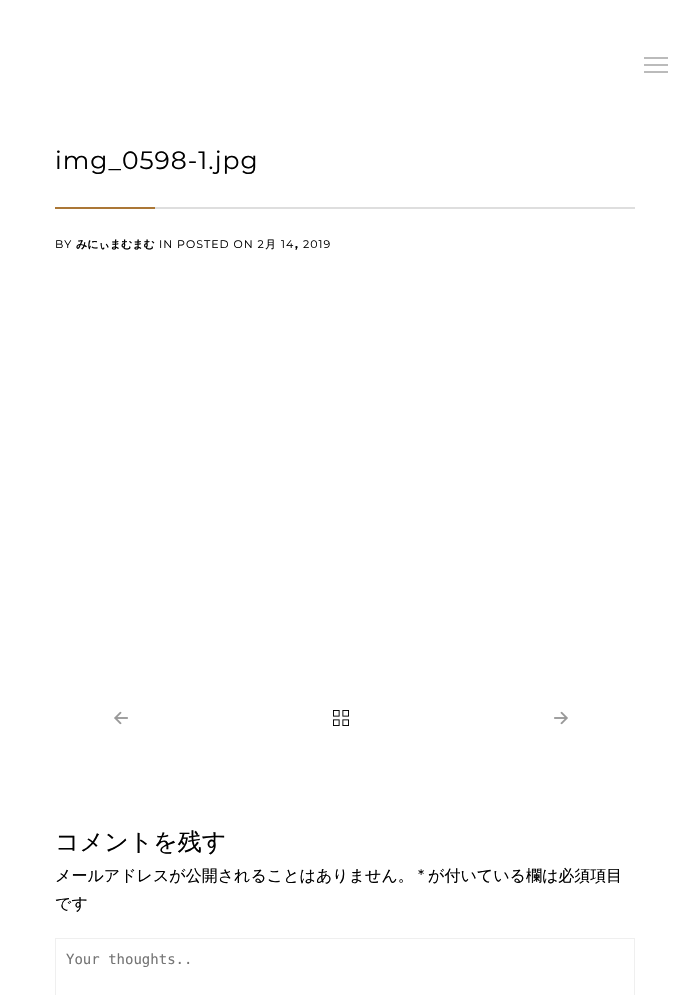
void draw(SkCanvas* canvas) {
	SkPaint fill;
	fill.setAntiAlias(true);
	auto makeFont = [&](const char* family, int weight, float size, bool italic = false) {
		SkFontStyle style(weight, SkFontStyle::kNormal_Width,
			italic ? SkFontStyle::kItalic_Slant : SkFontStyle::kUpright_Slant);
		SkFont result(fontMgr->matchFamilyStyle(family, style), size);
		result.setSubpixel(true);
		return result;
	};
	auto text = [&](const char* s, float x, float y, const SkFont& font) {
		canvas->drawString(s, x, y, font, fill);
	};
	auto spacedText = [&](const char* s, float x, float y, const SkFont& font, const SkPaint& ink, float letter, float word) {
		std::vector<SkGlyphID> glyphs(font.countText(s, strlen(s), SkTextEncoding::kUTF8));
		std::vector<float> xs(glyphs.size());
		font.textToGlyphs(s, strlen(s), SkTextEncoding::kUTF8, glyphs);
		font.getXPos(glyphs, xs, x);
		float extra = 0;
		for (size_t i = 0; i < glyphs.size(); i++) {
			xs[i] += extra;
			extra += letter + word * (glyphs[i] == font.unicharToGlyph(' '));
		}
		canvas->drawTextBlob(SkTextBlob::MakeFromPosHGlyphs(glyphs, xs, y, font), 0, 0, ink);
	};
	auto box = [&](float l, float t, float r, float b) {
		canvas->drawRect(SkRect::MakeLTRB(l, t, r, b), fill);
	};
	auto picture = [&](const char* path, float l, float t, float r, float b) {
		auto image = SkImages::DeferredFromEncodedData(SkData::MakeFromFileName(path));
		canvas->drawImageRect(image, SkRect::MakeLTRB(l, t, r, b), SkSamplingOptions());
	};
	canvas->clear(0xFFFFFFFF);
	fill.setColor(0xFFBBBBBB);
	box(644, 64, 668, 66);
	box(644, 57, 668, 59);
	box(644, 71, 668, 73);
	fill.setColor(0xFFDEDEDE);
	box(155, 207, 635, 209);
	fill.setColor(0xFFAB7736);
	box(55, 207, 155, 209);
	picture("image0.png", 114, 711, 128, 725);
	picture("image1.png", 333, 710, 349, 726);
	picture("image2.png", 554, 711, 568, 725);
	fill.setStyle(SkPaint::kStroke_Style);
	fill.setStrokeWidth(1);
	fill.setColor(0xFFEFEFEF);
	canvas->drawRect(SkRect::MakeLTRB(55.5f, 938.5f, 634.5f, 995.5f), fill);
	auto font1 = makeFont("Montserrat", 100, 25);
	fill.setStyle(SkPaint::kFill_Style);
	fill.setColor(0xFF000000);
	spacedText("img_0598-1.jpg", 55, 169, font1, fill, 1, 0);
	auto font2 = makeFont("Montserrat", 100, 11);
	spacedText("BY", 55, 248, font2, fill, 1, 0);
	auto font3 = makeFont("WenQuanYi Zen Hei", 700, 11);
	text("みにぃまむまむ", 76, 248, font3);
	spacedText("IN", 159, 248, font2, fill, 1, 0);
	spacedText("POSTED ON 2", 177, 248, font2, fill, 1, 0);
	auto font4 = makeFont("WenQuanYi Zen Hei", 500, 11);
	spacedText("月", 265, 248, font4, fill, 1, 0);
	spacedText("14", 281, 248, font2, fill, 1, 0);
	auto font5 = makeFont("Montserrat", 700, 11);
	spacedText(",", 295, 248, font5, fill, 1, 0);
	spacedText("2019", 303, 248, font2, fill, 1, 0);
	auto font6 = makeFont("WenQuanYi Zen Hei", 500, 24);
	text("コメントを残す", 55, 850, font6);
	auto font7 = makeFont("WenQuanYi Zen Hei", 500, 16);
	text("メールアドレスが公開されることはありません。", 55, 881, font7);
	auto font8 = makeFont("Montserrat", 100, 16);
	text("*", 418, 881, font8);
	text("が付いている欄は必須項目", 428, 881, font7);
	text("です", 55, 909, font7);
	auto font9 = makeFont("DejaVu Sans Mono", 400, 14);
	fill.setColor(0xFF757575);
	text("Your thoughts..", 66, 964, font9);
}
